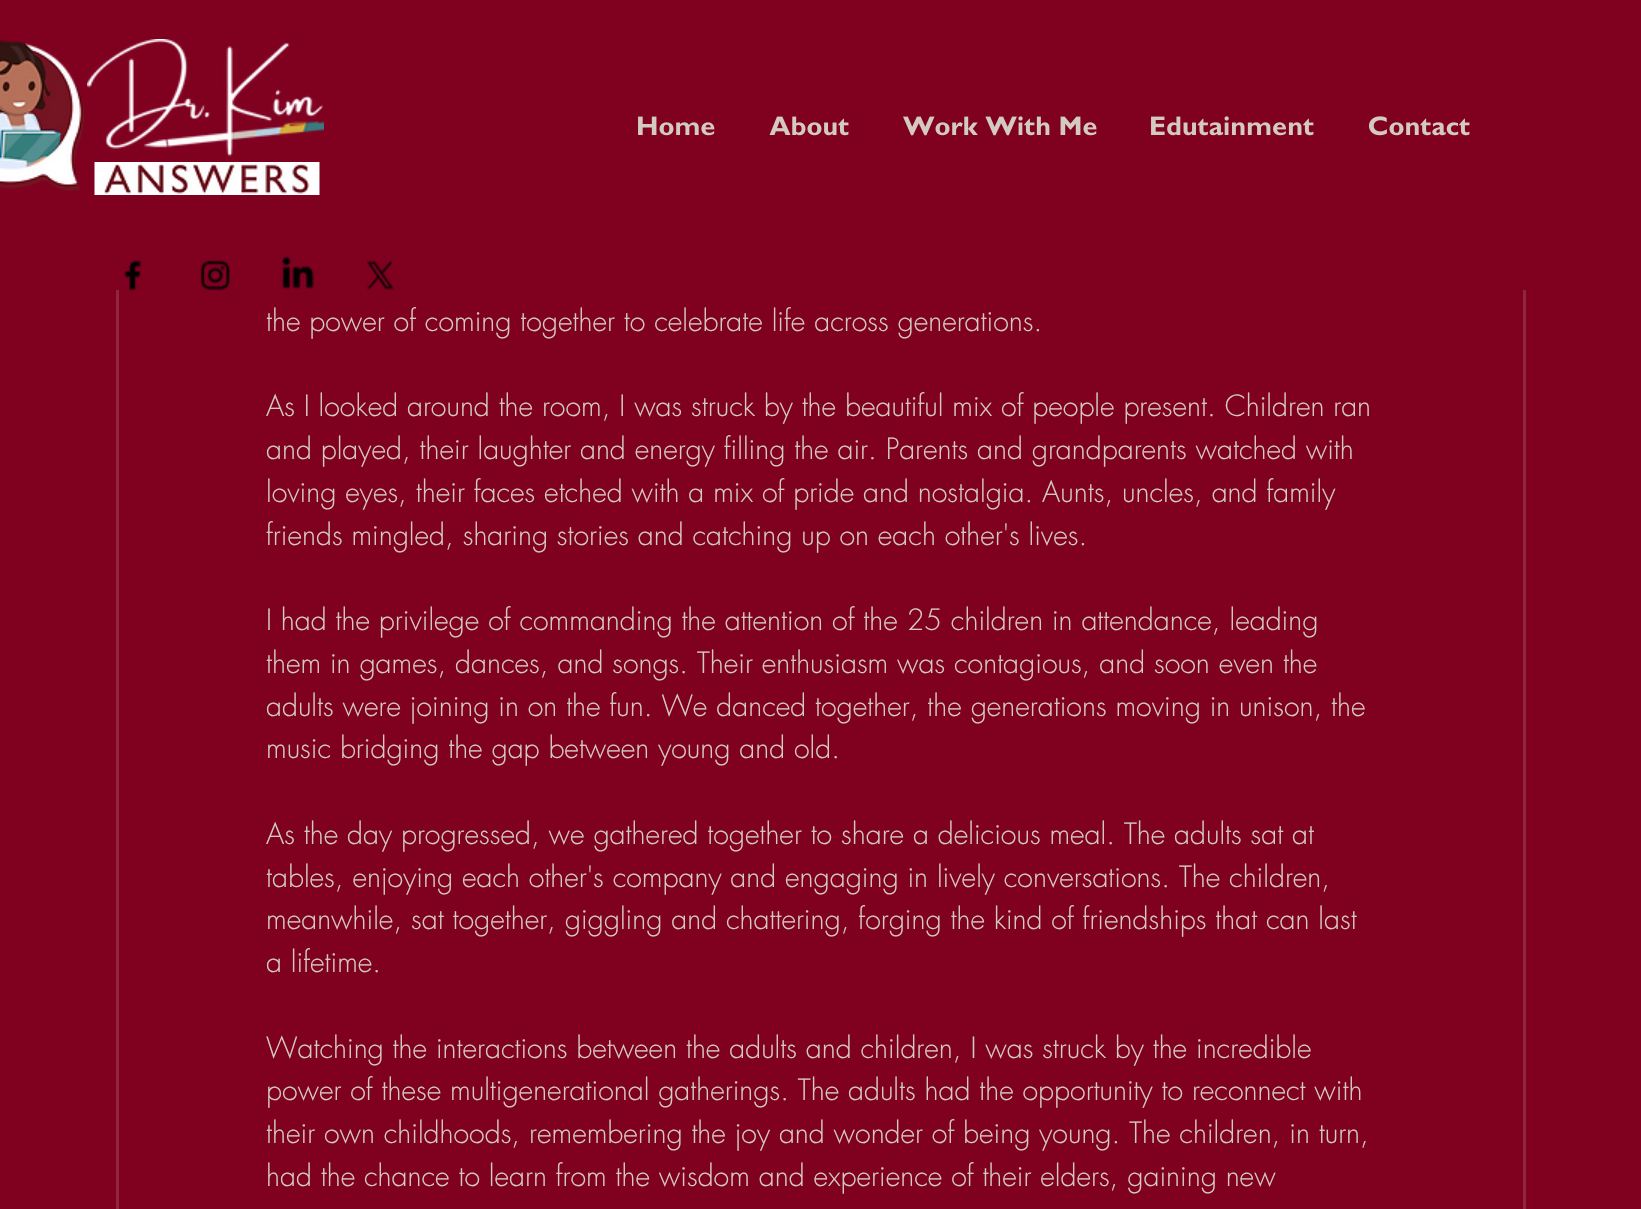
void draw(SkCanvas* canvas) {
	SkPaint fill;
	fill.setAntiAlias(true);
	auto makeFont = [&](const char* family, int weight, float size, bool italic = false) {
		SkFontStyle style(weight, SkFontStyle::kNormal_Width,
			italic ? SkFontStyle::kItalic_Slant : SkFontStyle::kUpright_Slant);
		SkFont result(fontMgr->matchFamilyStyle(family, style), size);
		result.setSubpixel(true);
		return result;
	};
	auto text = [&](const char* s, float x, float y, const SkFont& font) {
		canvas->drawString(s, x, y, font, fill);
	};
	auto box = [&](float l, float t, float r, float b) {
		canvas->drawRect(SkRect::MakeLTRB(l, t, r, b), fill);
	};
	auto picture = [&](const char* path, float l, float t, float r, float b) {
		auto image = SkImages::DeferredFromEncodedData(SkData::MakeFromFileName(path));
		canvas->drawImageRect(image, SkRect::MakeLTRB(l, t, r, b), SkSamplingOptions());
	};
	canvas->clear(0xFF800020);
	fill.setStyle(SkPaint::kStroke_Style);
	fill.setStrokeWidth(3);
	fill.setColor(0xFF90263E);
	canvas->drawRect(SkRect::MakeLTRB(117.5f, -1.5f, 1524.5f, 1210.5f), fill);
	fill.setStyle(SkPaint::kFill_Style);
	fill.setColor(0xFF800020);
	box(116, 0, 1526, 290);
	picture("image0.png", 0, 40, 85, 191);
	picture("image1.png", 87, 39, 324, 157);
	picture("image2.png", 94, 162, 320, 195);
	picture("image3.png", 638, 116, 715, 136);
	picture("image4.png", 769, 116, 849, 136);
	picture("image5.png", 903, 116, 1097, 136);
	picture("image6.png", 1151, 116, 1314, 136);
	picture("image7.png", 1368, 116, 1470, 136);
	picture("image8.png", 124, 260, 142, 291);
	picture("image9.png", 200, 260, 230, 291);
	picture("image10.png", 281, 256, 314, 289);
	picture("image11.png", 367, 260, 394, 291);
	auto font1 = makeFont("futura", 300, 28.5f);
	fill.setColor(0xFFD3CAC0);
	text("the power of coming together to celebrate life across generations.", 266, 331, font1);
	text("As I looked around the room, I was struck by the beautiful mix of people present. Children ran", 266, 416, font1);
	text("and played, their laughter and energy filling the air. Parents and grandparents watched with", 266, 459, font1);
	text("loving eyes, their faces etched with a mix of pride and nostalgia. Aunts, uncles, and family", 266, 502, font1);
	text("friends mingled, sharing stories and catching up on each other's lives.", 266, 545, font1);
	text("I had the privilege of commanding the attention of the 25 children in attendance, leading", 266, 630, font1);
	text("them in games, dances, and songs. Their enthusiasm was contagious, and soon even the", 266, 673, font1);
	text("adults were joining in on the fun. We danced together, the generations moving in unison, the", 266, 716, font1);
	text("music bridging the gap between young and old.", 266, 758, font1);
	text("As the day progressed, we gathered together to share a delicious meal. The adults sat at", 266, 844, font1);
	text("tables, enjoying each other's company and engaging in lively conversations. The children,", 266, 887, font1);
	text("meanwhile, sat together, giggling and chattering, forging the kind of friendships that can last", 266, 929, font1);
	text("a lifetime.", 266, 972, font1);
	text("Watching the interactions between the adults and children, I was struck by the incredible", 266, 1058, font1);
	text("power of these multigenerational gatherings. The adults had the opportunity to reconnect with", 266, 1100, font1);
	text("their own childhoods, remembering the joy and wonder of being young. The children, in turn,", 266, 1143, font1);
	text("had the chance to learn from the wisdom and experience of their elders, gaining new", 266, 1186, font1);
}
